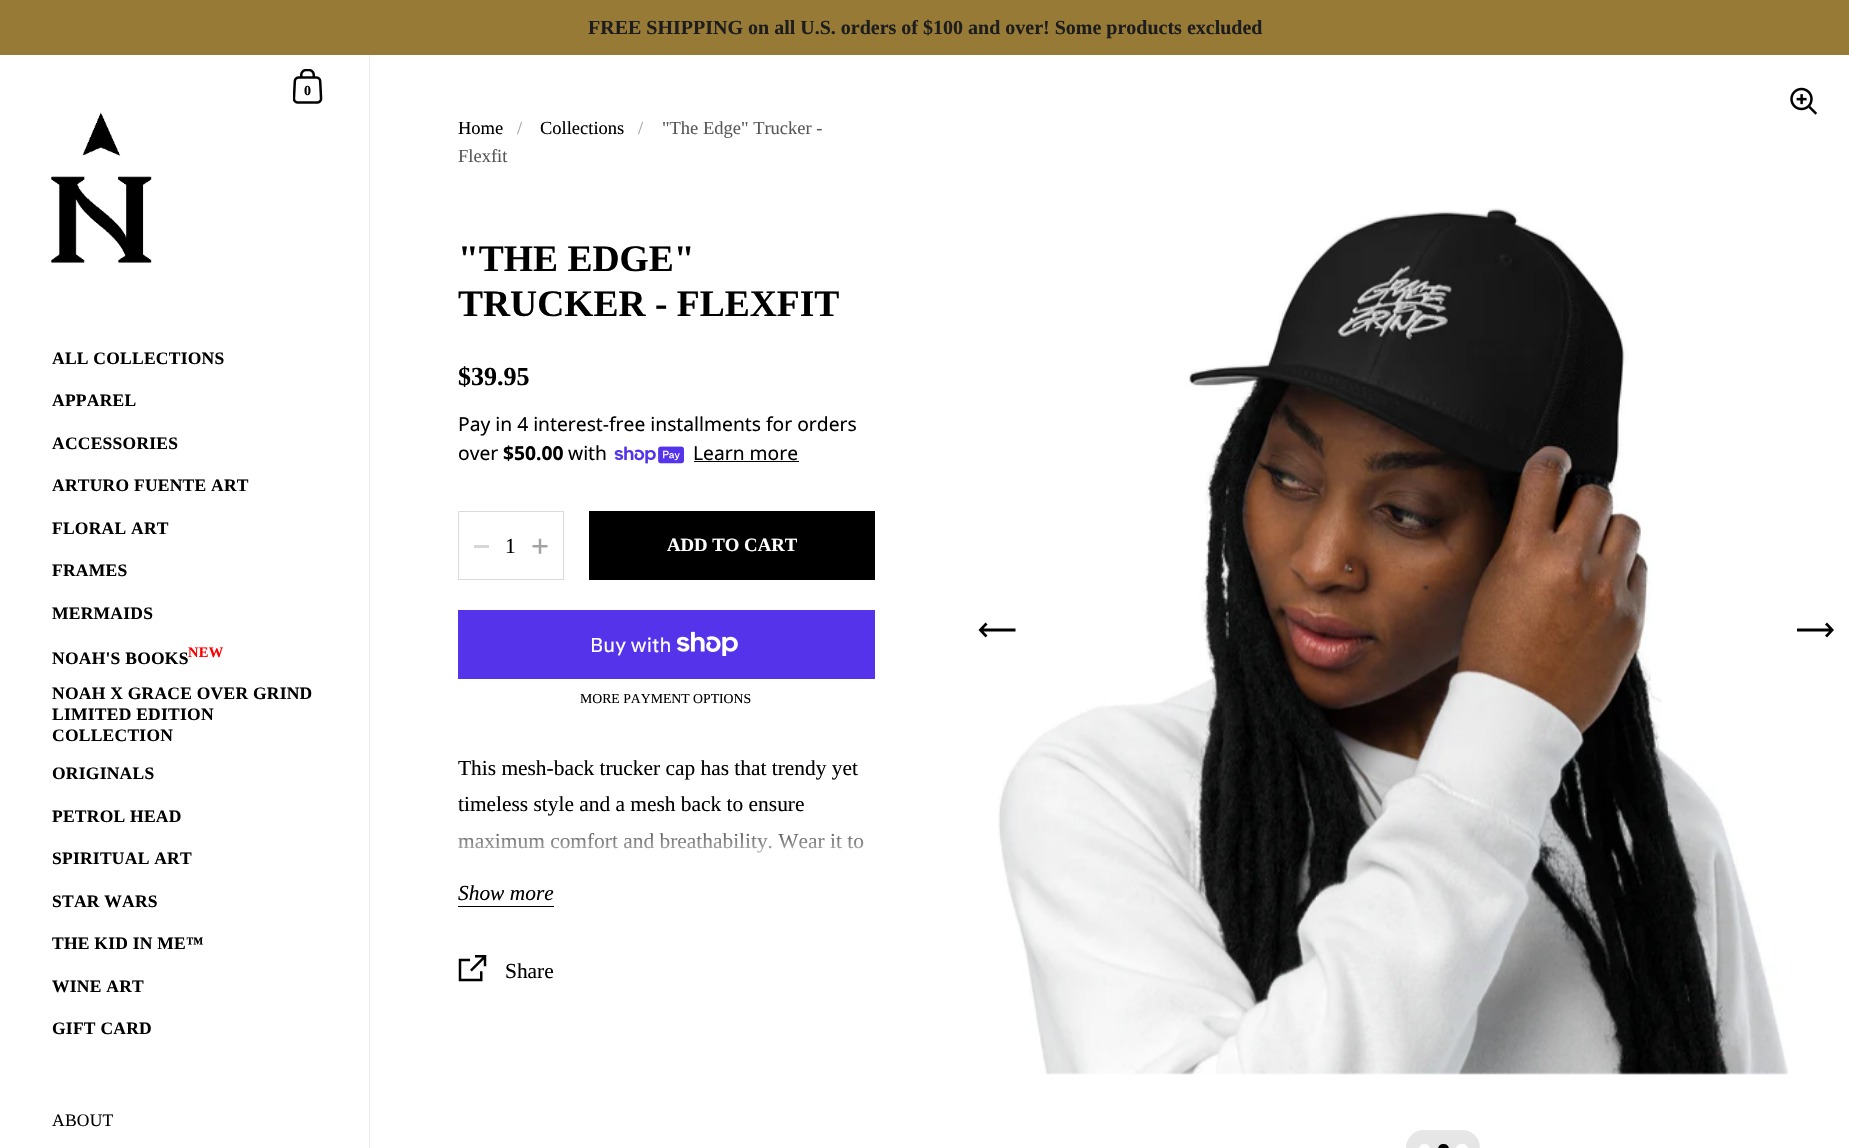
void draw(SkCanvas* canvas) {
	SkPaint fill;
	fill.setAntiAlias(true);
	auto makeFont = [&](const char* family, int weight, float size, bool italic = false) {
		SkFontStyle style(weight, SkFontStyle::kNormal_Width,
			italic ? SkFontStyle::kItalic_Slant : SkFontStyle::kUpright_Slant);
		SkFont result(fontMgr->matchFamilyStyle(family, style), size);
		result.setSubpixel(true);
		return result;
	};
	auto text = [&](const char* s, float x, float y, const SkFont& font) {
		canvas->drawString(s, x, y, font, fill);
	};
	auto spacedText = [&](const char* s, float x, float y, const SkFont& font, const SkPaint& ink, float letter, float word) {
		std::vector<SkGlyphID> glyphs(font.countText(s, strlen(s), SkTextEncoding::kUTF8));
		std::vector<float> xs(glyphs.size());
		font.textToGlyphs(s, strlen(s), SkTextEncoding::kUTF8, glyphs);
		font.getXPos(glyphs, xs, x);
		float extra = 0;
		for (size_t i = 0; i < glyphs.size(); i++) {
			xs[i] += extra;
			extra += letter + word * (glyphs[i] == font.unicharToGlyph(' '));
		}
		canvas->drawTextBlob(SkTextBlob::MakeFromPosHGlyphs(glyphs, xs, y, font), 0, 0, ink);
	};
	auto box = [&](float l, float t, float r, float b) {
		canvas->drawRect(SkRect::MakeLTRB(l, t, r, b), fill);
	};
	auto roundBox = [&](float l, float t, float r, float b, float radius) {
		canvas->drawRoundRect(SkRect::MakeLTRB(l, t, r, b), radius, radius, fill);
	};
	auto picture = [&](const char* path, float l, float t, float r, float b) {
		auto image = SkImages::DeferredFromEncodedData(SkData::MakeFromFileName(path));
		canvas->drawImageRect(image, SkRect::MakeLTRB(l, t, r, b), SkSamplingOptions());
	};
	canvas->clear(0xFFFFFFFF);
	fill.setColor(0xFF977A36);
	box(0, 0, 1849, 55);
	fill.setColor(0xFFEBEBEB);
	box(369, 55, 370, 1148);
	picture("image0.png", 293, 69, 323, 104);
	picture("image1.png", 51, 112, 152, 263);
	picture("image2.png", 614, 446, 684, 464);
	fill.setColor(0xFF000000);
	box(694, 461, 799, 462);
	fill.setStyle(SkPaint::kStroke_Style);
	fill.setStrokeWidth(1);
	fill.setColor(0xFFDBDBDB);
	canvas->drawRect(SkRect::MakeLTRB(458.5f, 511.5f, 563.5f, 579.5f), fill);
	fill.setStyle(SkPaint::kFill_Style);
	fill.setColor(0xFFD6D6D6);
	box(474, 545, 489, 548);
	picture("image3.png", 532, 538, 548, 554);
	fill.setColor(0xFF000000);
	box(589, 511, 875, 580);
	fill.setColor(0xFF5433EB);
	box(458, 610, 875, 679);
	picture("image4.png", 676, 631, 738, 656);
	fill.setColor(0xFF000000);
	box(458, 906, 554, 907);
	picture("image5.png", 458, 955, 487, 982);
	picture("image6.png", 1790, 87, 1817, 115);
	picture("image7.png", 998, 208, 1788, 1075);
	canvas->drawPath(SkPathBuilder().moveTo(985.5f, 637.5f).lineTo(987.5f, 635.5f).lineTo(983.5f, 631.5f).lineTo(1015.5f, 631.5f).lineTo(1015.5f, 628.5f).lineTo(983.5f, 628.5f).lineTo(987.5f, 624.5f).lineTo(985.5f, 622.5f).lineTo(978.5f, 630).close().detach(), fill);
	canvas->drawPath(SkPathBuilder().moveTo(1827, 622.5f).lineTo(1825, 624.5f).lineTo(1829, 628.5f).lineTo(1797, 628.5f).lineTo(1797, 631.5f).lineTo(1829, 631.5f).lineTo(1825, 635.5f).lineTo(1827, 637.5f).lineTo(1834, 630).close().detach(), fill);
	fill.setColor(0xFFE6E6E6);
	roundBox(1406, 1130, 1480, 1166, 18);
	fill.setColor(0xFFFFFFFF);
	roundBox(1419, 1144, 1430, 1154, 5.5f);
	fill.setColor(0xFF000000);
	roundBox(1438, 1144, 1449, 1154, 5.5f);
	fill.setColor(0xFFFFFFFF);
	roundBox(1456, 1144, 1468, 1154, 5.5f);
	auto font1 = makeFont("Liberation Serif", 700, 20);
	fill.setColor(0xFF1D1D1D);
	text("FREE SHIPPING on all U.S. orders of $100 and over! Some products excluded", 588, 34, font1);
	auto font2 = makeFont("Liberation Serif", 700, 14);
	fill.setColor(0xFF000000);
	text("0", 304, 95, font2);
	auto font3 = makeFont("Liberation Serif", 700, 17.5f);
	spacedText("ALL COLLECTIONS", 52, 364, font3, fill, 0.25f, 0);
	spacedText("APPAREL", 52, 406, font3, fill, 0.25f, 0);
	spacedText("ACCESSORIES", 52, 449, font3, fill, 0.25f, 0);
	spacedText("ARTURO FUENTE ART", 52, 491, font3, fill, 0.25f, 0);
	spacedText("FLORAL ART", 52, 534, font3, fill, 0.25f, 0);
	spacedText("FRAMES", 52, 576, font3, fill, 0.25f, 0);
	spacedText("MERMAIDS", 52, 619, font3, fill, 0.25f, 0);
	spacedText("NOAH'S BOOKS", 52, 664, font3, fill, 0.25f, 0);
	auto font4 = makeFont("Liberation Serif", 700, 14.5f);
	fill.setColor(0xFFFF0000);
	spacedText("NEW", 188, 657, font4, fill, 0.25f, 0);
	fill.setColor(0xFF000000);
	spacedText("NOAH X GRACE OVER GRIND", 52, 699, font3, fill, 0.25f, 0);
	spacedText("LIMITED EDITION", 52, 720, font3, fill, 0.25f, 0);
	spacedText("COLLECTION", 52, 741, font3, fill, 0.25f, 0);
	spacedText("ORIGINALS", 52, 779, font3, fill, 0.25f, 0);
	spacedText("PETROL HEAD", 52, 822, font3, fill, 0.25f, 0);
	spacedText("SPIRITUAL ART", 52, 864, font3, fill, 0.25f, 0);
	spacedText("STAR WARS", 52, 907, font3, fill, 0.25f, 0);
	spacedText("THE KID IN ME™", 52, 949, font3, fill, 0.25f, 0);
	spacedText("WINE ART", 52, 992, font3, fill, 0.25f, 0);
	spacedText("GIFT CARD", 52, 1034, font3, fill, 0.25f, 0);
	auto font5 = makeFont("Liberation Serif", 400, 17.5f);
	spacedText("ABOUT", 52, 1126, font5, fill, 0.25f, 0);
	auto font6 = makeFont("Liberation Serif", 400, 18.5f);
	text("Home", 458, 134, font6);
	fill.setColor(0xFFA3A3A3);
	text("/", 517, 134, font6);
	fill.setColor(0xFF000000);
	text("Collections", 540, 134, font6);
	fill.setColor(0xFFA3A3A3);
	text("/", 638, 134, font6);
	fill.setColor(0xFF575757);
	text("\"The Edge\" Trucker -", 662, 134, font6);
	text("Flexfit", 458, 162, font6);
	auto font7 = makeFont("Liberation Serif", 700, 37.5f);
	fill.setColor(0xFF000000);
	text("\"THE EDGE\"", 458, 271, font7);
	text("TRUCKER - FLEXFIT", 458, 316, font7);
	auto font8 = makeFont("Liberation Serif", 700, 26);
	text("$39.95", 458, 385, font8);
	auto font9 = makeFont("Noto Sans", 400, 19.25f);
	text("Pay in 4 interest-free installments for orders", 458, 431, font9);
	text("over", 458, 460, font9);
	auto font10 = makeFont("Noto Sans", 700, 19.25f);
	text("$50.00", 503, 460, font10);
	text("with", 568, 460, font9);
	text("Learn more", 693, 460, font9);
	auto font11 = makeFont("Liberation Serif", 400, 21.4f);
	text("1", 505, 553, font11);
	auto font12 = makeFont("Liberation Serif", 700, 18.75f);
	fill.setColor(0xFFFFFFFF);
	text("ADD TO CART", 667, 551, font12);
	auto font13 = makeFont("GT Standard", 400, 20);
	text("Buy with", 590, 652, font13);
	auto font14 = makeFont("Liberation Serif", 400, 13.75f);
	fill.setColor(0xFF000000);
	text("MORE PAYMENT OPTIONS", 580, 703, font14);
	canvas->save();
	canvas->clipRect(SkRect::MakeLTRB(458, 750, 875, 875));
	text("This mesh-back trucker cap has that trendy yet", 458, 775, font11);
	canvas->restore();
	text("timeless style and a mesh back to ensure", 458, 811, font11);
	text("maximum comfort and breathability. Wear it to", 458, 848, font11);
	{
		const SkColor colors[] = {0xFFFFFFFF, 0xFFFFFFFF, 0x00FFFFFF};
		const float stops[] = {0, 0.1f, 1};
		const SkPoint ends[] = {{666, 875}, {666, 813}};
		fill.setShader(SkGradientShader::MakeLinear(ends, colors, stops, 3, SkTileMode::kClamp));
		fill.setAlpha(255);
	}
	box(458, 814, 863, 853);
	auto font15 = makeFont("Liberation Serif", 400, 21.4f, true);
	fill.setShader(nullptr);
	fill.setColor(0xFF000000);
	text("Show more", 458, 900, font15);
	text("Share", 505, 978, font11);
}
